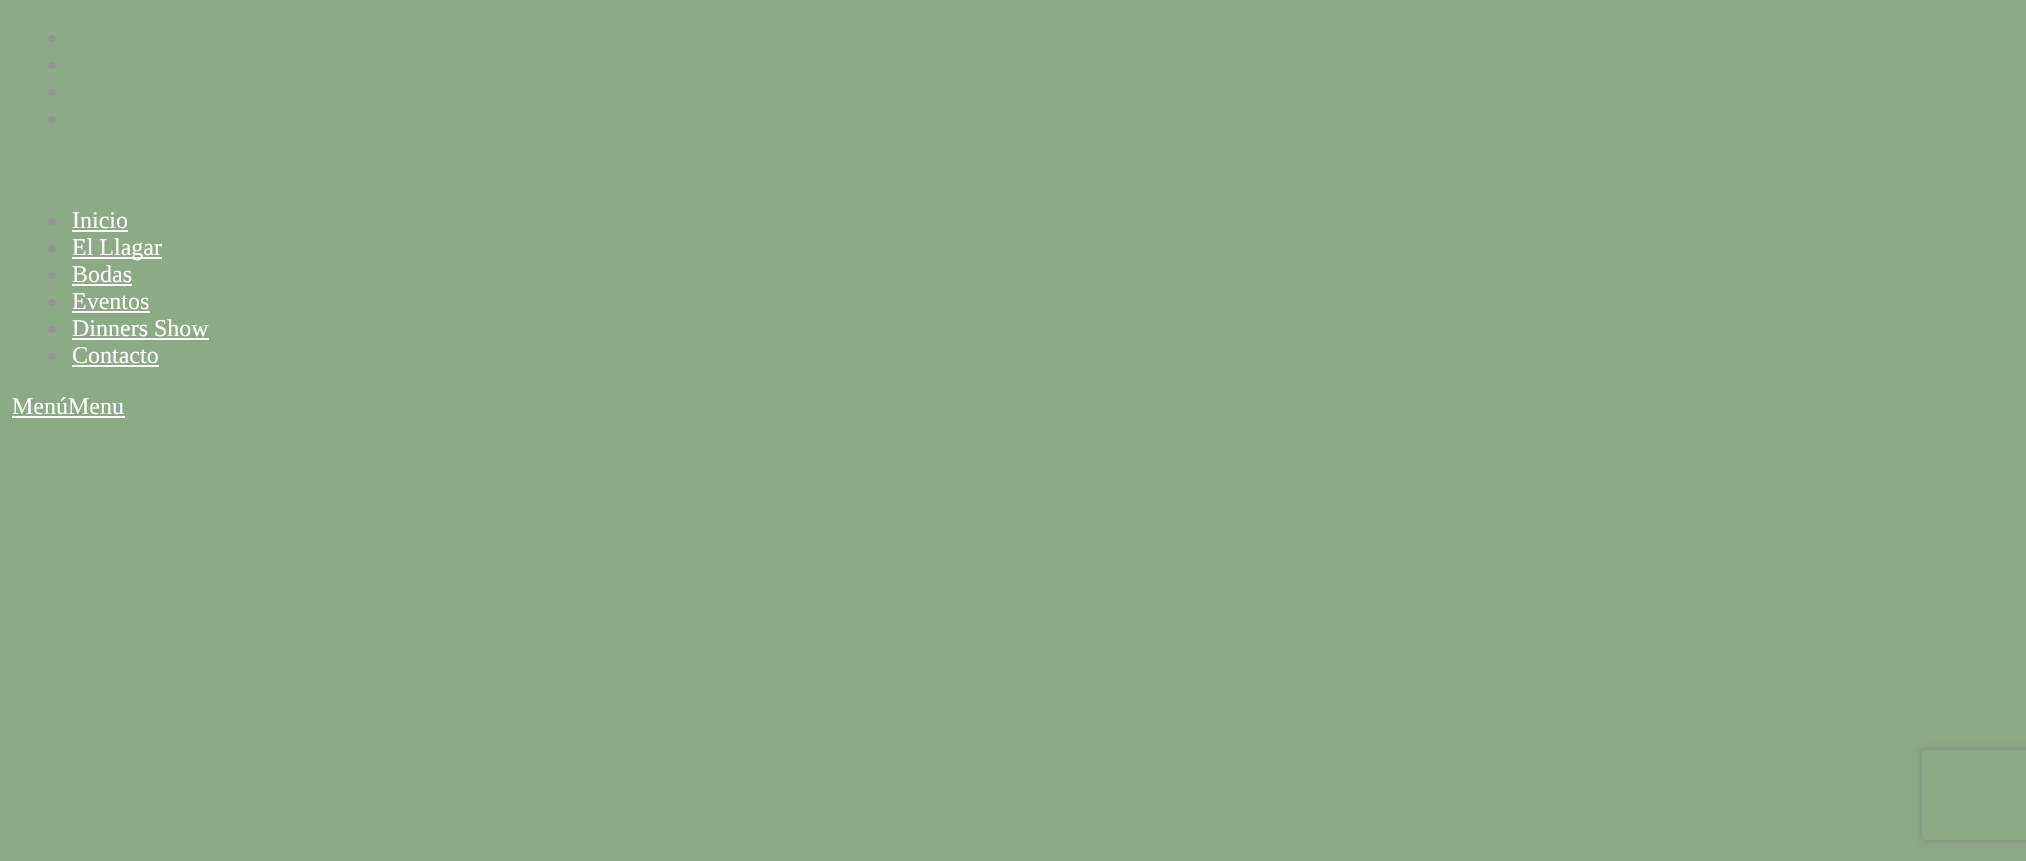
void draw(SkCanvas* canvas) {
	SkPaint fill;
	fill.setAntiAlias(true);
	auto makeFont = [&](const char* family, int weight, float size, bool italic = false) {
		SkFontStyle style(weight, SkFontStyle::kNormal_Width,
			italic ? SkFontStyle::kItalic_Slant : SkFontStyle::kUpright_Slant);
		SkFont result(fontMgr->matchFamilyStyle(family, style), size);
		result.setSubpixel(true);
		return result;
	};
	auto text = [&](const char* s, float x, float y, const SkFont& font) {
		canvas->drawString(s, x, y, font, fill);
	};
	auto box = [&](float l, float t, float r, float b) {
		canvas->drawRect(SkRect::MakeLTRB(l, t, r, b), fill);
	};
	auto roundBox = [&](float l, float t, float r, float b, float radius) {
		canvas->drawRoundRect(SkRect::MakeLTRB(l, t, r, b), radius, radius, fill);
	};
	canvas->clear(0xFF8CAA86);
	fill.setColor(0xFF959494);
	roundBox(48, 35, 56, 42, 3.5f);
	roundBox(48, 62, 56, 69, 3.5f);
	roundBox(48, 89, 56, 96, 3.5f);
	roundBox(48, 116, 56, 123, 3.5f);
	roundBox(48, 218, 56, 225, 3.5f);
	fill.setColor(0xFFFFFFFF);
	box(72, 230, 128, 232);
	fill.setColor(0xFF959494);
	roundBox(48, 245, 56, 252, 3.5f);
	fill.setColor(0xFFFFFFFF);
	box(72, 257, 162, 259);
	fill.setColor(0xFF959494);
	roundBox(48, 272, 56, 279, 3.5f);
	fill.setColor(0xFFFFFFFF);
	box(72, 284, 132, 286);
	fill.setColor(0xFF959494);
	roundBox(48, 299, 56, 306, 3.5f);
	fill.setColor(0xFFFFFFFF);
	box(72, 311, 150, 313);
	fill.setColor(0xFF959494);
	roundBox(48, 326, 56, 333, 3.5f);
	fill.setColor(0xFFFFFFFF);
	box(72, 338, 209, 340);
	fill.setColor(0xFF959494);
	roundBox(48, 353, 56, 360, 3.5f);
	fill.setColor(0xFFFFFFFF);
	box(72, 365, 159, 367);
	box(12, 416, 125, 418);
	canvas->save();
	canvas->clipPath(SkPathBuilder(SkPathFillType::kEvenOdd).moveTo(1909, 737).lineTo(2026, 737).lineTo(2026, 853).lineTo(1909, 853).close().moveTo(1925, 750).lineTo(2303, 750).cubicTo(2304.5f, 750, 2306, 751.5f, 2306, 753).lineTo(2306, 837).cubicTo(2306, 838.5f, 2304.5f, 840, 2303, 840).lineTo(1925, 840).cubicTo(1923.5f, 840, 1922, 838.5f, 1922, 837).lineTo(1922, 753).cubicTo(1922, 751.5f, 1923.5f, 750, 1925, 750).close().detach(), true);
	fill.setColor(0xFF808080);
	fill.setMaskFilter(SkMaskFilter::MakeBlur(kNormal_SkBlurStyle, 4));
	canvas->drawRoundRect(SkRect::MakeLTRB(1922, 750, 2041, 840), 3, 3, fill);
	fill.setMaskFilter(nullptr);
	canvas->restore();
	auto font1 = makeFont("Liberation Serif", 400, 24);
	fill.setColor(0xFFFFFFFF);
	text("Inicio", 72, 228, font1);
	text("El Llagar", 72, 255, font1);
	text("Bodas", 72, 282, font1);
	text("Eventos", 72, 309, font1);
	text("Dinners Show", 72, 336, font1);
	text("Contacto", 72, 363, font1);
	text("MenúMenu", 12, 414, font1);
}
